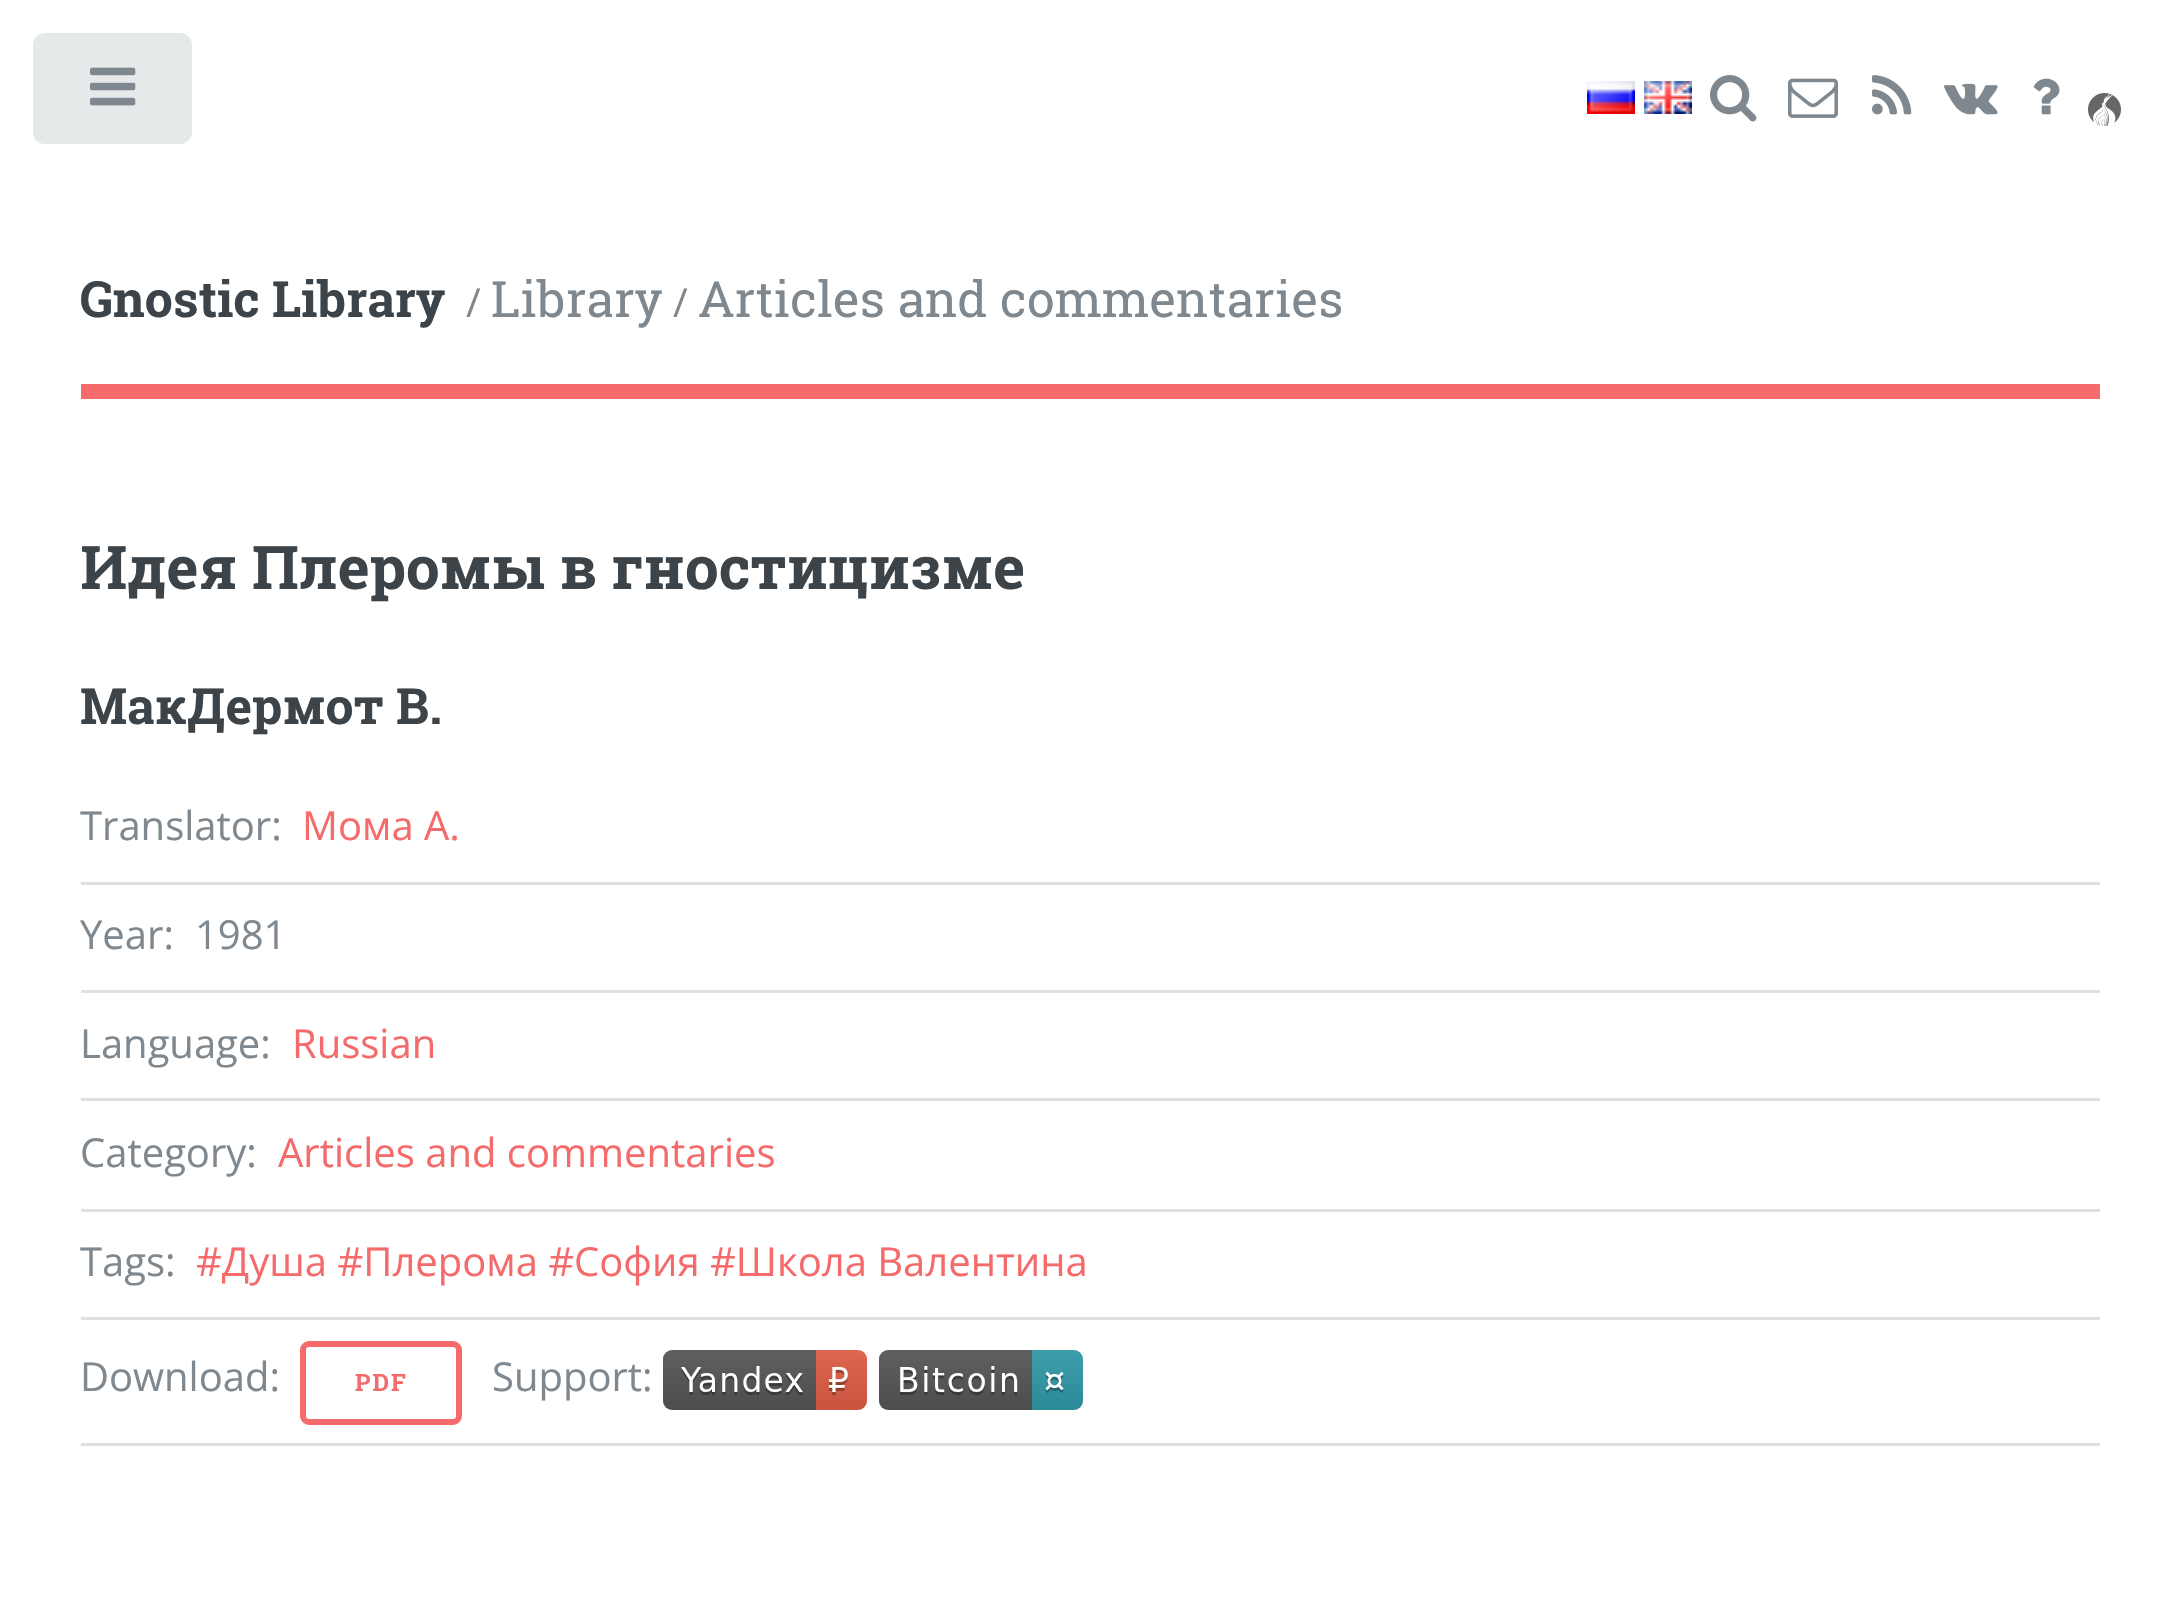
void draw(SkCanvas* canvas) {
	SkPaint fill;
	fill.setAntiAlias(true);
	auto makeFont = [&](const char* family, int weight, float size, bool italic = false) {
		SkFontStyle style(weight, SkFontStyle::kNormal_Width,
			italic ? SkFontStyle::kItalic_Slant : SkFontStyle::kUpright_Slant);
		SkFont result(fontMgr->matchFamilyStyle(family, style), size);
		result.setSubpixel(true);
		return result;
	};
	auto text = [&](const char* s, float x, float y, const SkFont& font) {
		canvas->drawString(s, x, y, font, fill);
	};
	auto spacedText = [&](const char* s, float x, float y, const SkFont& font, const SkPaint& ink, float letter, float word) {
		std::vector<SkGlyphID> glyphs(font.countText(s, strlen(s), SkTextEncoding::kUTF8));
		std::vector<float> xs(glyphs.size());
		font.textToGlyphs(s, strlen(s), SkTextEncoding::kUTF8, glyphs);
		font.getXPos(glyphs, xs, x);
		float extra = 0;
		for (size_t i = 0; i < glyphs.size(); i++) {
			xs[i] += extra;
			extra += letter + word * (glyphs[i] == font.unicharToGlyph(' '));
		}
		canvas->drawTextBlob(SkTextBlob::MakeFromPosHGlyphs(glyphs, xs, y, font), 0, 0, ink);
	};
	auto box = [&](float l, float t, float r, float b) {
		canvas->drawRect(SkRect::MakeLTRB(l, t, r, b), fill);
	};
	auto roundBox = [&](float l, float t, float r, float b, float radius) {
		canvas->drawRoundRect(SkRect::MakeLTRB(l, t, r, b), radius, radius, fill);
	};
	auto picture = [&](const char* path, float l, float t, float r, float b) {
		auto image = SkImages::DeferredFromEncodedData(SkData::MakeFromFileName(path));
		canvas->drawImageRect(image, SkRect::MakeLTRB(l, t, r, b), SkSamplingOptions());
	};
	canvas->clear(0xFFFFFFFF);
	fill.setColor(0xFFE6E9E9);
	roundBox(33, 33, 192, 144, 12);
	picture("image0.png", 90, 67, 136, 106);
	fill.setColor(0xFFF56A6A);
	box(81, 384, 2100, 399);
	picture("image1.png", 1587, 81, 1635, 114);
	picture("image2.png", 1644, 81, 1692, 114);
	picture("image3.png", 1710, 75, 1757, 122);
	picture("image4.png", 1788, 78, 1838, 118);
	picture("image5.png", 1872, 75, 1912, 115);
	picture("image6.png", 1944, 83, 1998, 115);
	picture("image7.png", 2033, 78, 2060, 115);
	picture("image8.png", 2088, 93, 2121, 126);
	fill.setColor(0xFFDDE1E3);
	box(81, 882, 2100, 885);
	box(81, 990, 2100, 993);
	box(81, 1098, 2100, 1101);
	box(81, 1209, 2100, 1212);
	box(81, 1317, 2100, 1320);
	fill.setStyle(SkPaint::kStroke_Style);
	fill.setStrokeWidth(6);
	fill.setColor(0xFFF56A6A);
	canvas->drawRoundRect(SkRect::MakeLTRB(303, 1344, 459, 1422), 6, 6, fill);
	picture("image9.png", 663, 1350, 867, 1410);
	picture("image10.png", 879, 1350, 1083, 1410);
	fill.setStyle(SkPaint::kFill_Style);
	fill.setColor(0xFFDDE1E3);
	box(81, 1443, 2100, 1446);
	auto font1 = makeFont("Roboto Slab", 700, 50);
	fill.setColor(0xFF3D4449);
	text("Gnostic Library", 80, 317, font1);
	auto font2 = makeFont("Open Sans", 400, 40);
	fill.setColor(0xFF7F888F);
	text("/", 466, 317, font2);
	auto font3 = makeFont("Roboto Slab", 400, 50);
	text("Library", 491, 317, font3);
	text("/", 673, 317, font2);
	text("Articles and commentaries", 698, 317, font3);
	auto font4 = makeFont("Roboto Slab", 700, 60);
	fill.setColor(0xFF3D4449);
	text("Идея Плеромы в гностицизме", 80, 589, font4);
	text("МакДермот В.", 80, 724, font1);
	fill.setColor(0xFF7F888F);
	text("Translator:", 80, 840, font2);
	fill.setColor(0xFFF56A6A);
	text("Мома А.", 302, 840, font2);
	fill.setColor(0xFF7F888F);
	text("Year:", 80, 949, font2);
	text("1981", 195, 949, font2);
	text("Language:", 80, 1058, font2);
	fill.setColor(0xFFF56A6A);
	text("Russian", 292, 1058, font2);
	fill.setColor(0xFF7F888F);
	text("Category:", 80, 1167, font2);
	fill.setColor(0xFFF56A6A);
	text("Articles and commentaries", 278, 1167, font2);
	fill.setColor(0xFF7F888F);
	text("Tags:", 80, 1276, font2);
	fill.setColor(0xFFF56A6A);
	text("#Душа #Плерома #София #Школа Валентина", 196, 1276, font2);
	fill.setColor(0xFF7F888F);
	text("Download:", 80, 1391, font2);
	auto font5 = makeFont("Roboto Slab", 700, 24);
	fill.setColor(0xFFF56A6A);
	spacedText("PDF", 355, 1391, font5, fill, 2, 0);
	fill.setColor(0xFF7F888F);
	text("Support:", 492, 1391, font2);
}
